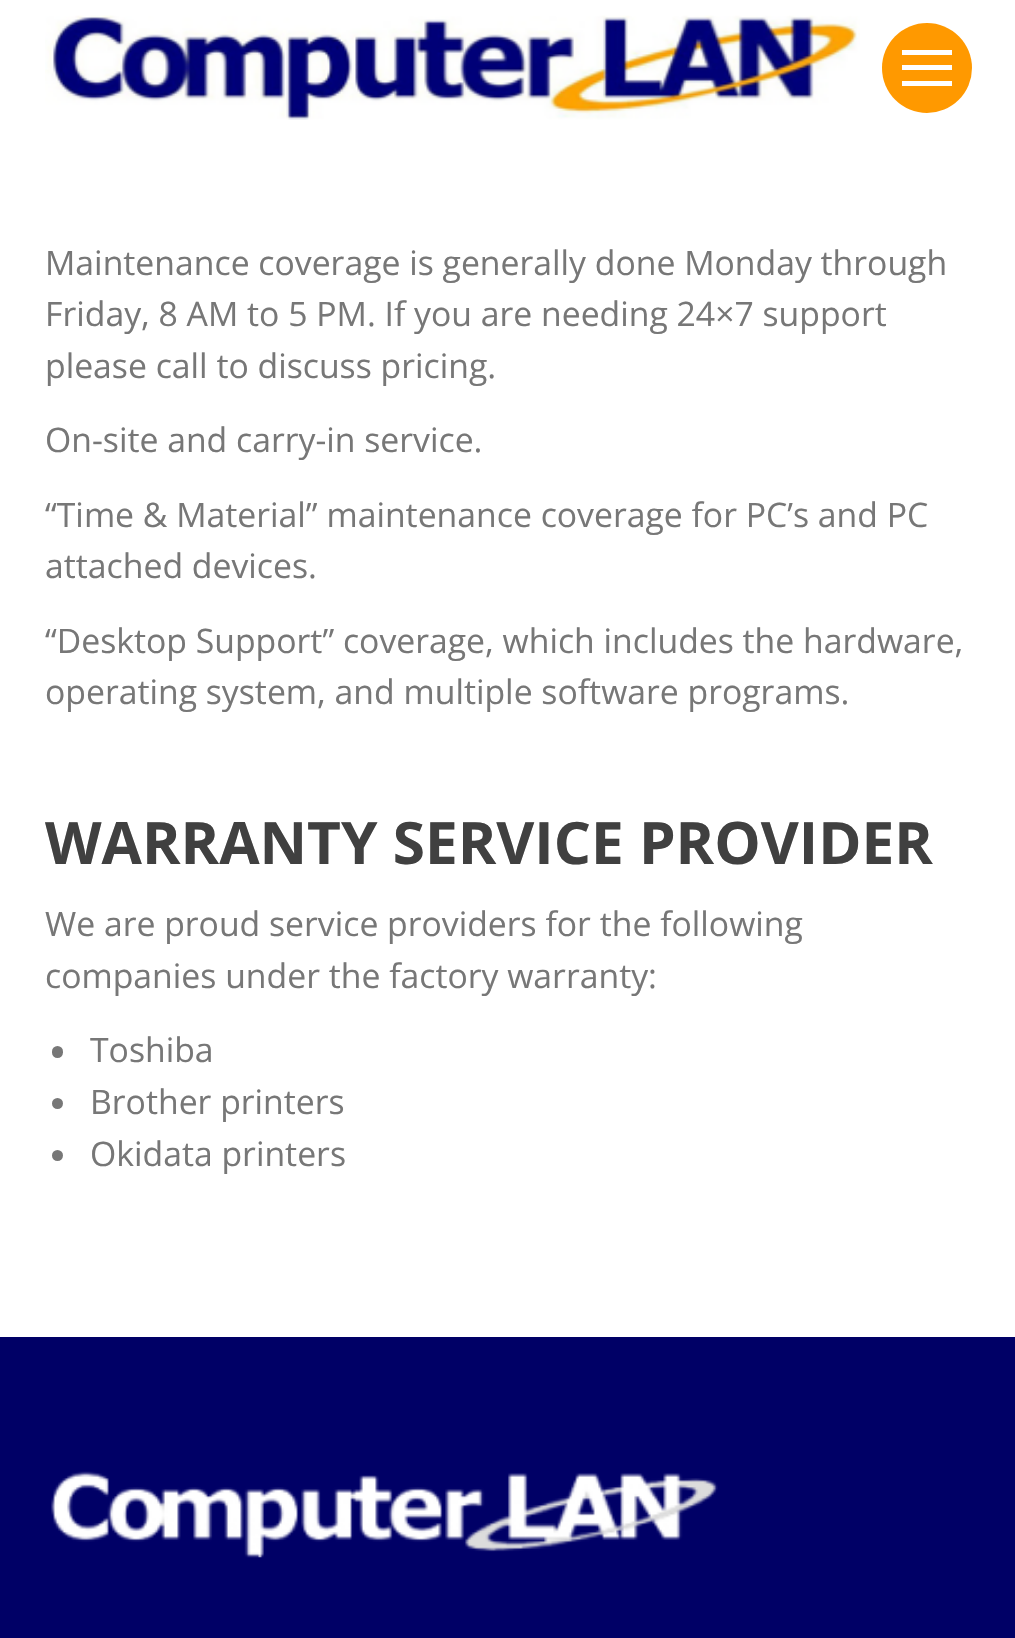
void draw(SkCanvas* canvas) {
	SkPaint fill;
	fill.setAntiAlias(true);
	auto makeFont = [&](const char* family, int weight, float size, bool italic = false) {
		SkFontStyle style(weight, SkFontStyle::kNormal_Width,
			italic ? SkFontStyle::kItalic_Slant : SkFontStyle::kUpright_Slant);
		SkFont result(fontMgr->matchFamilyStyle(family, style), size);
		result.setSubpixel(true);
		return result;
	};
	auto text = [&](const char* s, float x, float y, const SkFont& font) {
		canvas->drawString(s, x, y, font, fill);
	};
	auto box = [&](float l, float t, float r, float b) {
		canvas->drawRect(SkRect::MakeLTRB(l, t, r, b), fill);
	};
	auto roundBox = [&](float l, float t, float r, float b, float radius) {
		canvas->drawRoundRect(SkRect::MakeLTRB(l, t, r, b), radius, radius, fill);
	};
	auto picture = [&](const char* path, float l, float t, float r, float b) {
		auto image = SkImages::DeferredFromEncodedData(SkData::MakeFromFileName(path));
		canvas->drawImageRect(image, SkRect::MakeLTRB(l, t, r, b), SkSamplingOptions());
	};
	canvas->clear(0xFF000066);
	fill.setColor(0xFFFFFFFF);
	box(0, 0, 1015, 1337);
	picture("image0.png", 45, 15, 860, 120);
	fill.setColor(0xFFFF9900);
	canvas->drawCircle(927, 68, 45, fill);
	fill.setColor(0xFFFFFFFF);
	box(902, 50, 952, 55);
	box(902, 65, 952, 70);
	box(902, 81, 952, 86);
	fill.setColor(0xFF777777);
	roundBox(52, 1046, 63, 1058, 5.5f);
	canvas->drawCircle(57.5f, 1103.5f, 5.5f, fill);
	canvas->drawCircle(57.5f, 1155.5f, 5.5f, fill);
	picture("image1.png", 51, 1471, 718, 1558);
	auto font1 = makeFont("Open Sans", 400, 33.75f);
	text("Maintenance coverage is generally done Monday through", 45, 275, font1);
	text("Friday, 8 AM to 5 PM. If you are needing 24×7 support", 45, 326, font1);
	text("please call to discuss pricing.", 45, 378, font1);
	text("On-site and carry-in service.", 45, 452, font1);
	text("“Time & Material” maintenance coverage for PC’s and PC", 45, 527, font1);
	text("attached devices.", 45, 578, font1);
	text("“Desktop Support” coverage, which includes the hardware,", 45, 653, font1);
	text("operating system, and multiple software programs.", 45, 704, font1);
	auto font2 = makeFont("Open Sans", 700, 58.5f);
	fill.setColor(0xFF404040);
	text("WARRANTY SERVICE PROVIDER", 45, 864, font2);
	fill.setColor(0xFF777777);
	text("We are proud service providers for the following", 45, 936, font1);
	text("companies under the factory warranty:", 45, 988, font1);
	text("Toshiba", 90, 1062, font1);
	text("Brother printers", 90, 1114, font1);
	text("Okidata printers", 90, 1166, font1);
}
